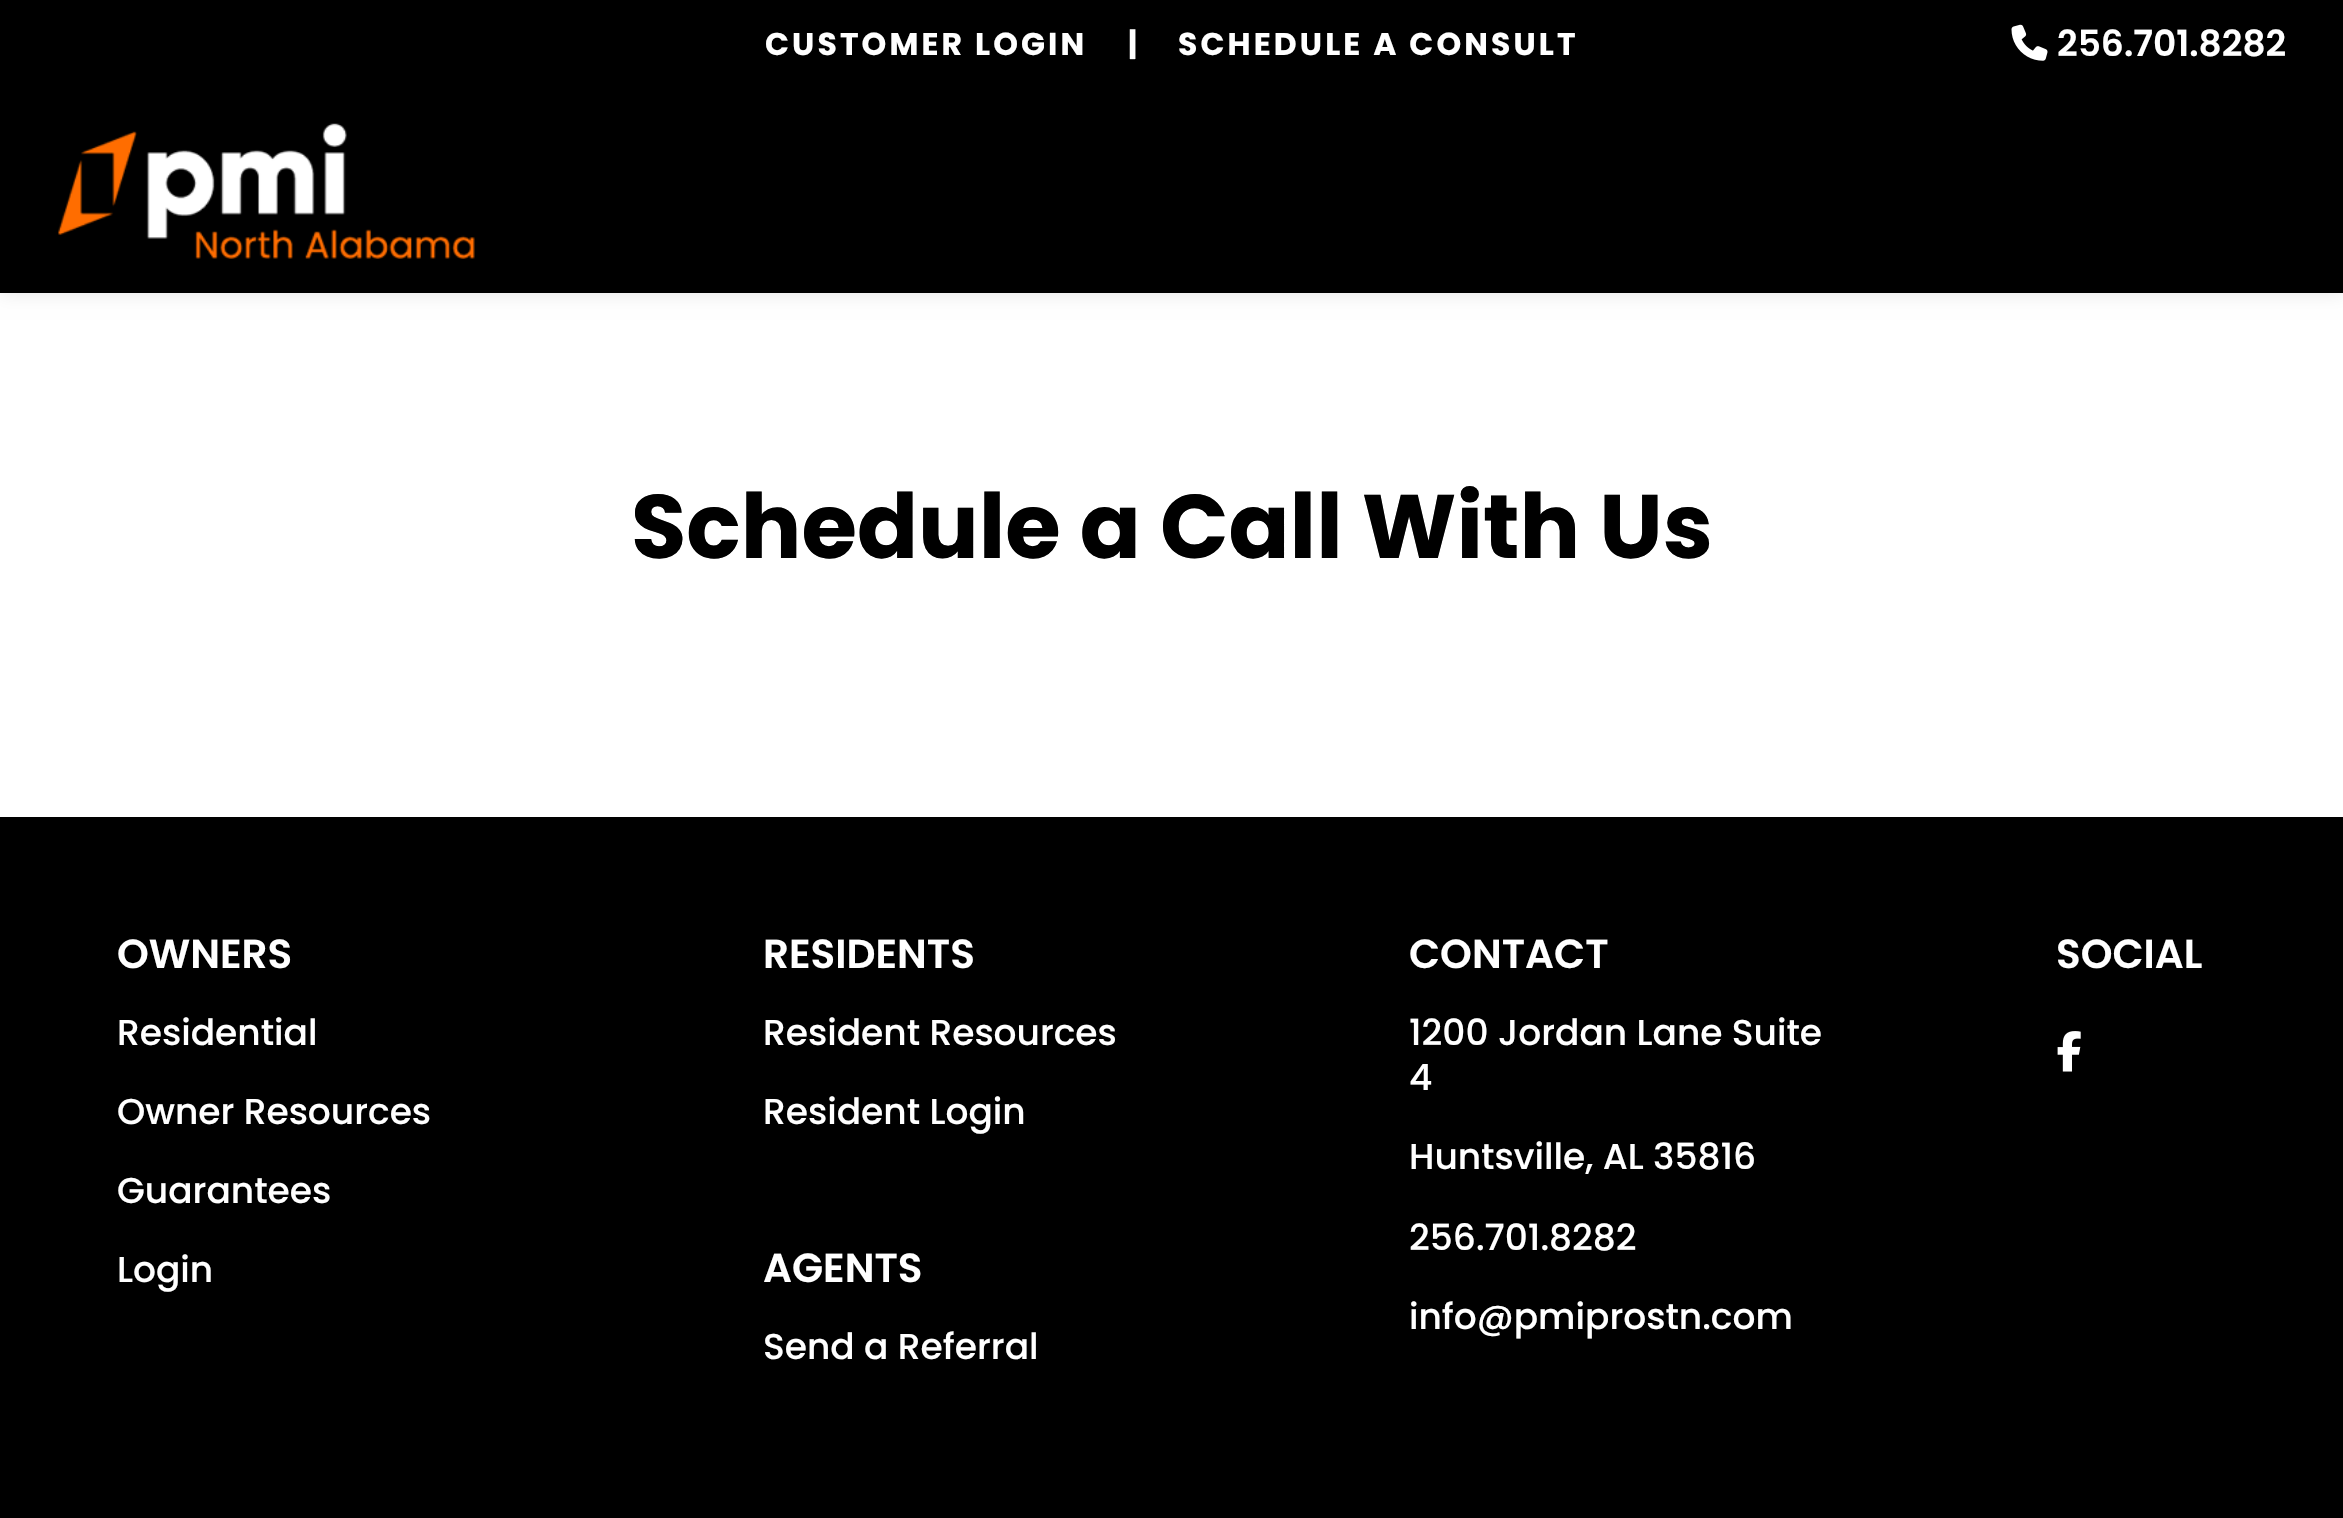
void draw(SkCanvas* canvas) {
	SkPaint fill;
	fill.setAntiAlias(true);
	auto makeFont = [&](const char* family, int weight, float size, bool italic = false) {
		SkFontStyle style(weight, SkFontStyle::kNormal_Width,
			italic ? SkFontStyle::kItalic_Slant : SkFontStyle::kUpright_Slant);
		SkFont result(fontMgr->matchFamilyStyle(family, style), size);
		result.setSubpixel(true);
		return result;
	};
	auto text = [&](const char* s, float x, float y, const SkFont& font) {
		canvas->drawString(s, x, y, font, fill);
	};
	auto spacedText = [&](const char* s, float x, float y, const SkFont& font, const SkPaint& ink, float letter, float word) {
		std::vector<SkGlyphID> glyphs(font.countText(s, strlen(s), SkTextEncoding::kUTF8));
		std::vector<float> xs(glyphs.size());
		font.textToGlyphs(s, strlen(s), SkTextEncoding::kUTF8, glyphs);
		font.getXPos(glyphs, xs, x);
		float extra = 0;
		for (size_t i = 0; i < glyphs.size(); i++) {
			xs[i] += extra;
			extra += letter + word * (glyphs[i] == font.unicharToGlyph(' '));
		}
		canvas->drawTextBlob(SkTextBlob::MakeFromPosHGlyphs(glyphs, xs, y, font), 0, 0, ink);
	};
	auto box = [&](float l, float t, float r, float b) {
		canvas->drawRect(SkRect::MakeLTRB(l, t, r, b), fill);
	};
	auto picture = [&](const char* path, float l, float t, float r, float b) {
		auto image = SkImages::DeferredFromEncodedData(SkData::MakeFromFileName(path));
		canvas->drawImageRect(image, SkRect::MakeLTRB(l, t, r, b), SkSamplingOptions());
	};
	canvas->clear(0xFFFFFFFF);
	fill.setColor(0x1A000000);
	fill.setMaskFilter(SkMaskFilter::MakeBlur(kNormal_SkBlurStyle, 9));
	canvas->drawRect(SkRect::MakeLTRB(0, 0, 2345, 293), fill);
	fill.setMaskFilter(nullptr);
	fill.setColor(0xFF000000);
	box(0, 0, 2343, 293);
	picture("image0.png", 58, 123, 475, 259);
	picture("image1.png", 2011, 24, 2048, 61);
	box(0, 817, 2343, 1518);
	picture("image2.png", 2057, 1031, 2081, 1072);
	auto font1 = makeFont("Poppins", 700, 31.5f);
	fill.setColor(0xFFFFFFFF);
	spacedText("CUSTOMER LOGIN", 765, 55, font1, fill, 3.1f, 0);
	spacedText("|", 1128, 55, font1, fill, 3.1f, 0);
	spacedText("SCHEDULE A CONSULT", 1178, 55, font1, fill, 3.1f, 0);
	auto font2 = makeFont("Poppins", 600, 36);
	text("256.701.8282", 2057, 56, font2);
	auto font3 = makeFont("Poppins", 700, 90);
	fill.setColor(0xFF000000);
	text("Schedule a Call With Us", 631, 558, font3);
	auto font4 = makeFont("Poppins", 600, 40.5f);
	fill.setColor(0xFFFFFFFF);
	text("OWNERS", 117, 968, font4);
	auto font5 = makeFont("Poppins", 500, 36);
	text("Residential", 117, 1045, font5);
	text("Owner Resources", 117, 1124, font5);
	text("Guarantees", 117, 1203, font5);
	text("Login", 117, 1282, font5);
	text("RESIDENTS", 763, 968, font4);
	text("Resident Resources", 763, 1045, font5);
	text("Resident Login", 763, 1124, font5);
	text("AGENTS", 763, 1282, font4);
	text("Send a Referral", 763, 1359, font5);
	text("CONTACT", 1409, 968, font4);
	text("1200 Jordan Lane Suite", 1409, 1045, font5);
	text("4", 1409, 1090, font5);
	text("Huntsville, AL 35816", 1409, 1169, font5);
	text("256.701.8282", 1409, 1250, font5);
	text("info@pmiprostn.com", 1409, 1329, font5);
	text("SOCIAL", 2056, 968, font4);
}
